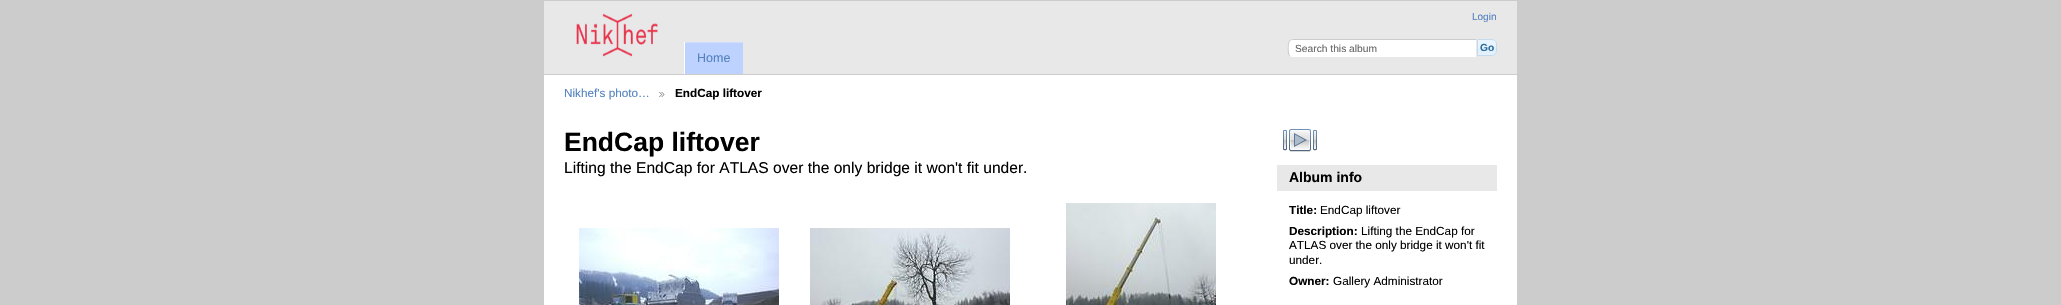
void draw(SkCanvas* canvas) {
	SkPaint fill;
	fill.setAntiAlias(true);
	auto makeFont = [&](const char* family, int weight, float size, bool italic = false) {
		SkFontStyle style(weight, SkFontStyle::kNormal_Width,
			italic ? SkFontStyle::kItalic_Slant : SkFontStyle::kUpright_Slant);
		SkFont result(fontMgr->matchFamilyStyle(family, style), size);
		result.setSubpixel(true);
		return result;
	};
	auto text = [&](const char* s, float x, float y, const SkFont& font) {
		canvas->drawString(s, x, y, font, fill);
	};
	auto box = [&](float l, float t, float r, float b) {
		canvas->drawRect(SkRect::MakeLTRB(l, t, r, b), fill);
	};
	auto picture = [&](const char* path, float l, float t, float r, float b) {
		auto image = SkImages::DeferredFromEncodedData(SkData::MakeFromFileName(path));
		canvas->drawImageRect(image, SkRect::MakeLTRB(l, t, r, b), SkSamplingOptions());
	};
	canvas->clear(0xFFCCCCCC);
	fill.setColor(0xFFFFFFFF);
	box(544, 75, 1517, 305);
	fill.setColor(0xFFE8E8E8);
	box(544, 1, 1517, 74);
	picture("image0.png", 576, 13, 658, 57);
	fill.setColor(0xFFFFFFFF);
	canvas->drawPath(SkPathBuilder().moveTo(1293, 39).lineTo(1477, 39).lineTo(1477, 58).lineTo(1293, 58).cubicTo(1290, 58, 1288, 56, 1288, 53).lineTo(1288, 44).cubicTo(1288, 41, 1290, 39, 1293, 39).close().detach(), fill);
	fill.setColor(0xFFCCCCCC);
	canvas->drawPath(SkPathBuilder().moveTo(1293, 39).cubicTo(1292, 39, 1290, 40, 1289, 40).lineTo(1290, 41).cubicTo(1291, 40, 1292, 40, 1293, 40).lineTo(1476, 40).lineTo(1477, 39).close().detach(), fill);
	fill.setColor(0xFFE8E8E8);
	canvas->drawPath(SkPathBuilder().moveTo(1477, 39).lineTo(1476, 40).lineTo(1476, 57).lineTo(1477, 58).close().detach(), fill);
	canvas->drawPath(SkPathBuilder().moveTo(1477, 58).lineTo(1476, 57).lineTo(1292, 57).lineTo(1290, 56).lineTo(1289, 57).cubicTo(1290, 58, 1292, 58, 1293, 58).close().detach(), fill);
	fill.setColor(0xFFCCCCCC);
	canvas->drawPath(SkPathBuilder().moveTo(1288, 44).cubicTo(1288, 47, 1287, 54.5f, 1289.5f, 56.5f).lineTo(1290, 56).cubicTo(1288.5f, 53.5f, 1288.5f, 46, 1289, 43.5f).lineTo(1290, 41).lineTo(1289.5f, 40.5f).cubicTo(1288.5f, 41, 1288, 42.5f, 1288, 44).close().detach(), fill);
	picture("image1.png", 1478, 39, 1497, 56);
	fill.setStyle(SkPaint::kStroke_Style);
	fill.setStrokeWidth(1);
	fill.setColor(0xFFC5DBEC);
	canvas->drawPath(SkPathBuilder().moveTo(1477.5f, 39.5f).lineTo(1492, 39.5f).cubicTo(1494.5f, 39.5f, 1496.5f, 41.5f, 1496.5f, 44).lineTo(1496.5f, 51).cubicTo(1496.5f, 53.5f, 1494.5f, 55.5f, 1492, 55.5f).lineTo(1477.5f, 55.5f).close().detach(), fill);
	fill.setStyle(SkPaint::kFill_Style);
	fill.setColor(0xFFBDD2FF);
	box(685, 43, 743, 74);
	fill.setColor(0xFFCFDEFF);
	box(684, 42, 743, 43);
	fill.setColor(0xFFFFFFFF);
	box(684, 42, 685, 74);
	picture("image2.png", 659, 92, 665, 97);
	picture("image3.png", 579, 228, 779, 305);
	picture("image4.png", 810, 228, 1010, 305);
	picture("image5.png", 1066, 203, 1216, 305);
	picture("image6.png", 1283, 129, 1317, 152);
	fill.setColor(0xFFE8E8E8);
	box(1277, 165, 1497, 191);
	auto font1 = makeFont("Liberation Sans", 400, 10);
	fill.setColor(0xFF5382BF);
	text("Login", 1472, 20, font1);
	auto font2 = makeFont("Liberation Sans", 400, 10.25f);
	fill.setColor(0xFF666666);
	text("Search this album", 1295, 52, font2);
	auto font3 = makeFont("Liberation Sans", 700, 10.25f);
	fill.setColor(0xFF2E6E9E);
	text("Go", 1480, 51, font3);
	auto font4 = makeFont("Liberation Sans", 400, 12.5f);
	fill.setColor(0xFF5382BF);
	text("Home", 697, 62, font4);
	auto font5 = makeFont("Liberation Sans", 400, 11.75f);
	text("Nikhef's photo…", 564, 97, font5);
	auto font6 = makeFont("Liberation Sans", 700, 11.75f);
	fill.setColor(0xFF000000);
	text("EndCap liftover", 675, 97, font6);
	auto font7 = makeFont("Liberation Sans", 700, 26.5f);
	text("EndCap liftover", 564, 151, font7);
	auto font8 = makeFont("Liberation Sans", 400, 15.6f);
	text("Lifting the EndCap for ATLAS over the only bridge it won't fit under.", 564, 173, font8);
	auto font9 = makeFont("Liberation Sans", 700, 14);
	text("Album info", 1289, 182, font9);
	text("Title:", 1289, 214, font6);
	text("EndCap liftover", 1320, 214, font5);
	text("Description:", 1289, 235, font6);
	text("Lifting the EndCap for", 1361, 235, font5);
	text("ATLAS over the only bridge it won't fit", 1289, 249, font5);
	text("under.", 1289, 264, font5);
	text("Owner:", 1289, 285, font6);
	text("Gallery Administrator", 1333, 285, font5);
}
